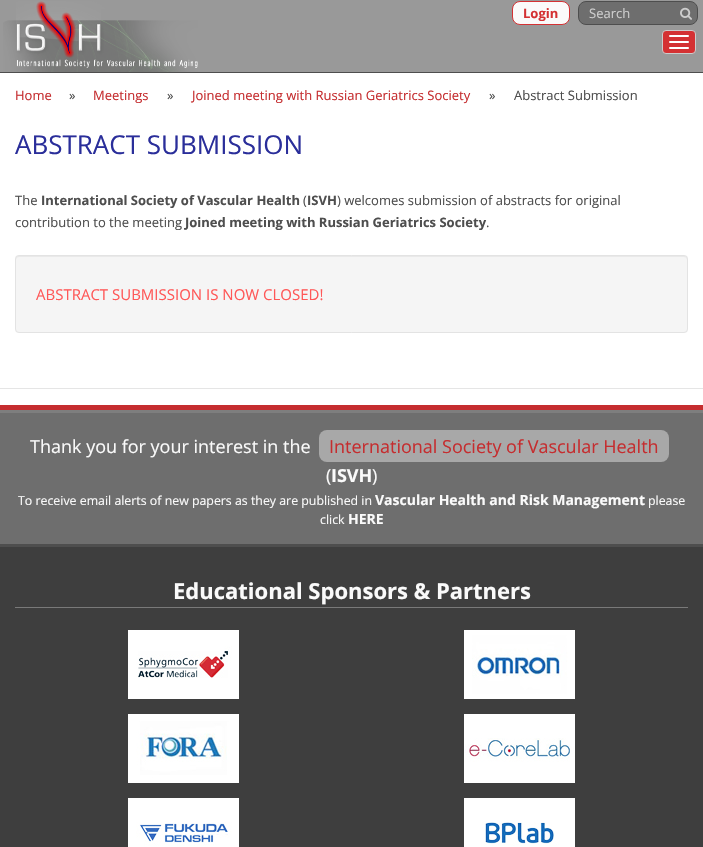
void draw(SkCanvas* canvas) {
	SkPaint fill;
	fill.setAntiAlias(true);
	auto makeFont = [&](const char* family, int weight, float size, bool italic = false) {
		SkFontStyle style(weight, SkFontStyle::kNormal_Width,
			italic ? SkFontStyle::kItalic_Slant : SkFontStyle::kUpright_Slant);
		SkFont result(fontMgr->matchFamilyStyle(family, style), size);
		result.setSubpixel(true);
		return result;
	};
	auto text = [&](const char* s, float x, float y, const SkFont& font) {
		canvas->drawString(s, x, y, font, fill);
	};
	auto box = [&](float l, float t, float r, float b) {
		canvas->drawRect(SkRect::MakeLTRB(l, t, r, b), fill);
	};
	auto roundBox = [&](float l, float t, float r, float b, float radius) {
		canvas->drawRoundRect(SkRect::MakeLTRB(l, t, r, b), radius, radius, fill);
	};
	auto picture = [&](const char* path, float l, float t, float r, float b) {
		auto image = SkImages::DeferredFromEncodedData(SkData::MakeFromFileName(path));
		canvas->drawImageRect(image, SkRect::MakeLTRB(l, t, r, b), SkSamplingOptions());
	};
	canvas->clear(0xFFFFFFFF);
	fill.setColor(0xFF4E4E4E);
	box(0, 72, 703, 73);
	fill.setColor(0xFF999999);
	box(0, 0, 703, 72);
	picture("image0.png", 3, 1, 198, 72);
	fill.setColor(0xFFFAFAFA);
	canvas->drawRoundRect(SkRect::MakeLTRB(512.5f, 1.5f, 569.5f, 24.5f), 7.5f, 7.5f, fill);
	fill.setStyle(SkPaint::kStroke_Style);
	fill.setStrokeWidth(1);
	fill.setColor(0xFFD43133);
	canvas->drawRoundRect(SkRect::MakeLTRB(512.5f, 1.5f, 569.5f, 24.5f), 7.5f, 7.5f, fill);
	fill.setStyle(SkPaint::kFill_Style);
	fill.setColor(0xFF6E6E6E);
	canvas->drawRoundRect(SkRect::MakeLTRB(578.5f, 1.5f, 697.5f, 24.5f), 7.5f, 7.5f, fill);
	fill.setStyle(SkPaint::kStroke_Style);
	fill.setColor(0xFF4E4E4E);
	canvas->drawRoundRect(SkRect::MakeLTRB(578.5f, 1.5f, 697.5f, 24.5f), 7.5f, 7.5f, fill);
	picture("image1.png", 680, 7, 692, 20);
	fill.setStyle(SkPaint::kFill_Style);
	fill.setColor(0xFFD43133);
	canvas->drawRoundRect(SkRect::MakeLTRB(662.5f, 30.5f, 695.5f, 53.5f), 3.5f, 3.5f, fill);
	fill.setStyle(SkPaint::kStroke_Style);
	fill.setColor(0xFFCCCCCC);
	canvas->drawRoundRect(SkRect::MakeLTRB(662.5f, 30.5f, 695.5f, 53.5f), 3.5f, 3.5f, fill);
	fill.setStyle(SkPaint::kFill_Style);
	fill.setColor(0xFFFFFFFF);
	roundBox(669, 35, 689, 37, 1);
	roundBox(669, 41, 689, 43, 1);
	roundBox(669, 47, 689, 49, 1);
	fill.setColor(0xFFF5F5F5);
	roundBox(15, 255, 688, 333, 4);
	fill.setColor(0xFFE9E9E9);
	canvas->drawPath(SkPathBuilder().moveTo(19, 257).lineTo(684, 257).cubicTo(686, 257, 687, 258, 687, 260).lineTo(687, 259).cubicTo(687, 257, 686, 256, 684, 256).lineTo(19, 256).cubicTo(17, 256, 16, 257, 16, 259).lineTo(16, 260).cubicTo(16, 258, 17, 257, 19, 257).close().detach(), fill);
	fill.setStyle(SkPaint::kStroke_Style);
	fill.setColor(0xFFE3E3E3);
	canvas->drawRoundRect(SkRect::MakeLTRB(15.5f, 255.5f, 687.5f, 332.5f), 3.5f, 3.5f, fill);
	fill.setStyle(SkPaint::kFill_Style);
	fill.setColor(0xFFE5E5E5);
	box(0, 388, 703, 389);
	fill.setColor(0xFFC52D2F);
	box(0, 405, 703, 410);
	fill.setColor(0xFF6E6E6E);
	box(0, 413, 703, 544);
	fill.setColor(0xFF7E7E7E);
	box(0, 410, 703, 413);
	fill.setColor(0xFF4E4E4E);
	box(0, 544, 703, 547);
	fill.setColor(0xFFA8A8A8);
	roundBox(319, 430, 669, 462, 8);
	fill.setColor(0xFF3E3E3E);
	box(0, 547, 703, 847);
	fill.setColor(0xFF797979);
	box(15, 607, 688, 608);
	picture("image2.png", 128, 630, 239, 699);
	picture("image3.png", 464, 630, 575, 699);
	picture("image4.png", 128, 714, 239, 783);
	picture("image5.png", 464, 714, 575, 783);
	picture("image6.png", 128, 798, 239, 847);
	picture("image7.png", 464, 798, 575, 847);
	auto font1 = makeFont("Open Sans", 700, 13);
	fill.setColor(0xFFD43133);
	text("Login", 523, 18, font1);
	auto font2 = makeFont("Open Sans", 400, 13);
	fill.setColor(0xFFCCCCCC);
	text("Search", 589, 18, font2);
	fill.setColor(0xFFC52D2F);
	text("Home", 15, 100, font2);
	fill.setColor(0xFF4E4E4E);
	text("»", 69, 100, font2);
	fill.setColor(0xFFC52D2F);
	text("Meetings", 93, 100, font2);
	fill.setColor(0xFF4E4E4E);
	text("»", 167, 100, font2);
	fill.setColor(0xFFC52D2F);
	text("Joined meeting with Russian Geriatrics Society", 192, 100, font2);
	fill.setColor(0xFF4E4E4E);
	text("»", 489, 100, font2);
	text("Abstract Submission", 514, 100, font2);
	auto font3 = makeFont("Open Sans", 400, 26);
	fill.setColor(0xFF2A2E9A);
	text("ABSTRACT SUBMISSION", 15, 154, font3);
	fill.setColor(0xFF4E4E4E);
	text("The", 15, 205, font2);
	text("International Society of Vascular Health", 41, 205, font1);
	text("(", 303, 205, font2);
	text("ISVH", 307, 205, font1);
	text(") welcomes submission of abstracts for original", 337, 205, font2);
	text("contribution to the meeting", 15, 227, font2);
	text("Joined meeting with Russian Geriatrics Society", 185, 227, font1);
	text(".", 486, 227, font2);
	auto font4 = makeFont("Open Sans", 400, 15);
	fill.setColor(0xFFFF5858);
	text("ABSTRACT SUBMISSION IS NOW CLOSED!", 36, 300, font4);
	auto font5 = makeFont("Open Sans", 400, 18);
	fill.setColor(0xFFFAFAFA);
	text("Thank you for your interest in the", 30, 453, font5);
	fill.setColor(0xFFC52D2F);
	text("International Society of Vascular Health", 329, 453, font5);
	fill.setColor(0xFFFAFAFA);
	text("(", 326, 482, font5);
	auto font6 = makeFont("Open Sans", 700, 18);
	text("ISVH", 331, 482, font6);
	text(")", 372, 482, font5);
	auto font7 = makeFont("Open Sans", 400, 12.35f);
	text("To receive email alerts of new papers as they are published in", 18, 505, font7);
	auto font8 = makeFont("Open Sans", 700, 14);
	text("Vascular Health and Risk Management", 375, 505, font8);
	text("please", 648, 505, font7);
	text("click", 320, 524, font7);
	text("HERE", 348, 524, font8);
	auto font9 = makeFont("Open Sans", 700, 22);
	text("Educational Sponsors & Partners", 173, 599, font9);
}
